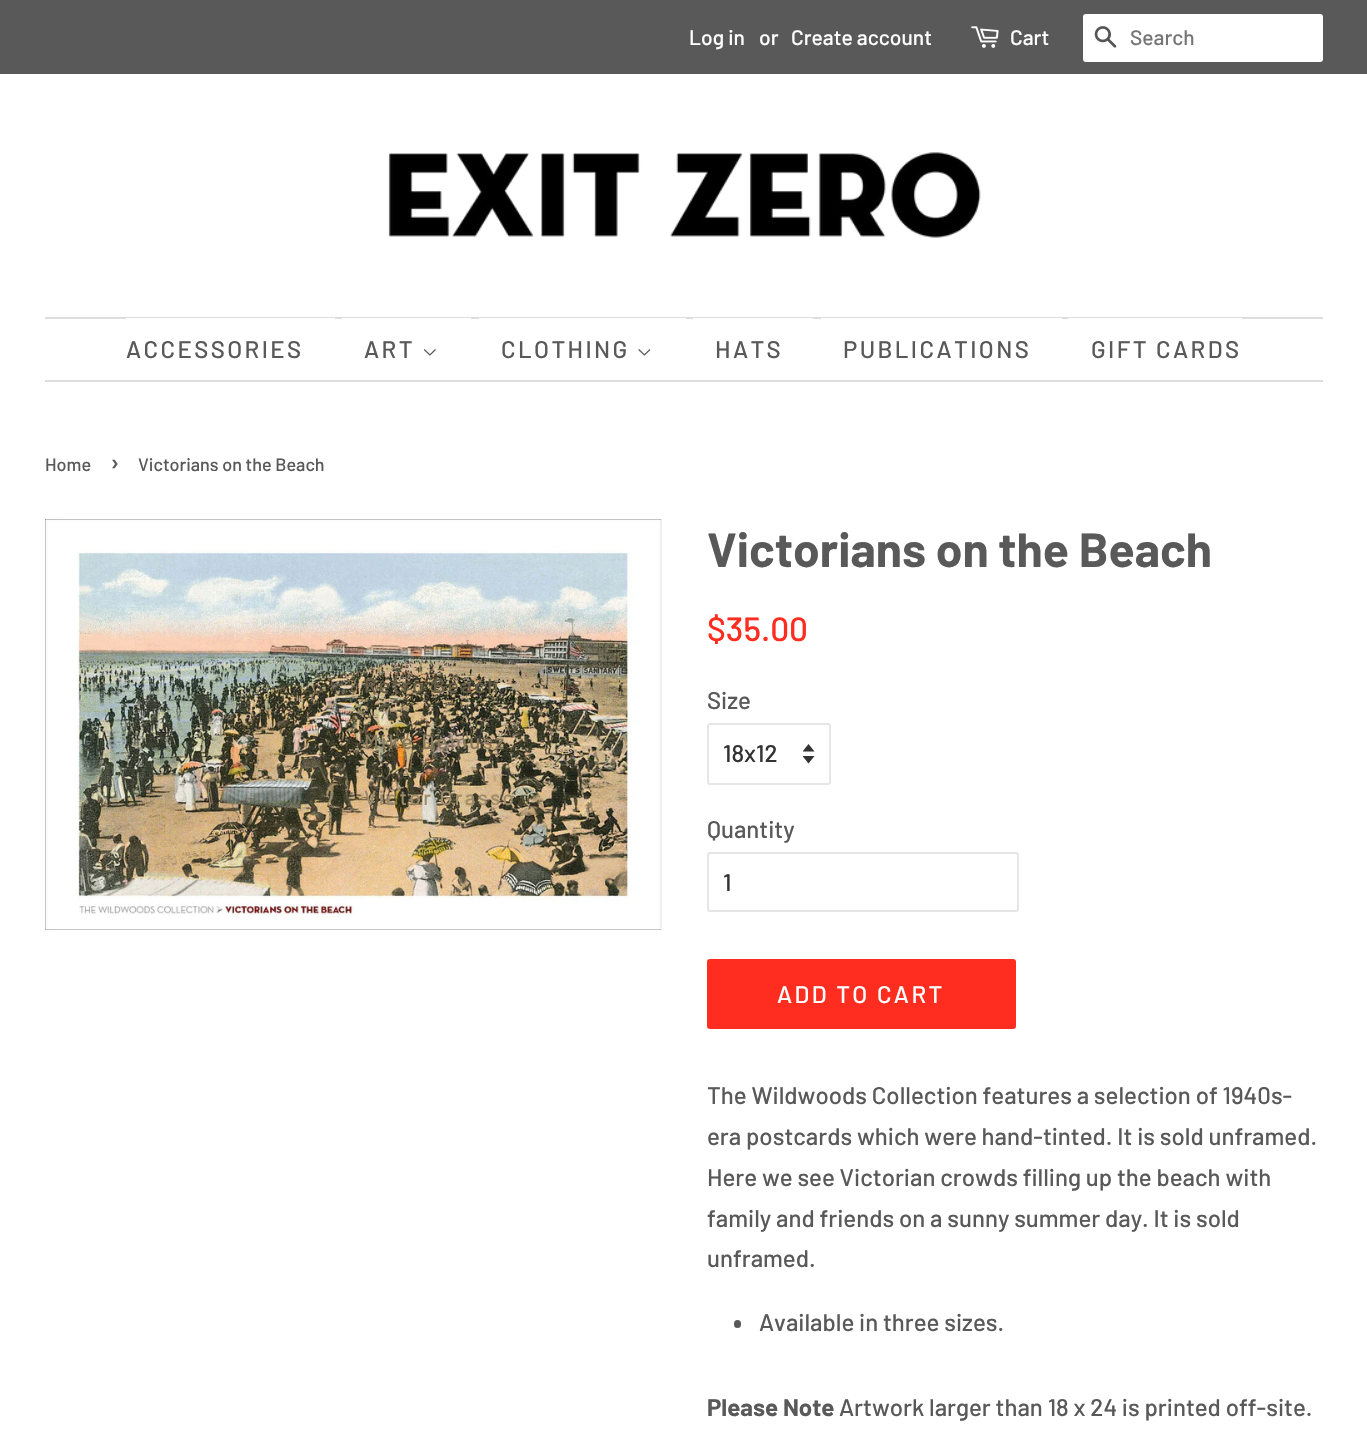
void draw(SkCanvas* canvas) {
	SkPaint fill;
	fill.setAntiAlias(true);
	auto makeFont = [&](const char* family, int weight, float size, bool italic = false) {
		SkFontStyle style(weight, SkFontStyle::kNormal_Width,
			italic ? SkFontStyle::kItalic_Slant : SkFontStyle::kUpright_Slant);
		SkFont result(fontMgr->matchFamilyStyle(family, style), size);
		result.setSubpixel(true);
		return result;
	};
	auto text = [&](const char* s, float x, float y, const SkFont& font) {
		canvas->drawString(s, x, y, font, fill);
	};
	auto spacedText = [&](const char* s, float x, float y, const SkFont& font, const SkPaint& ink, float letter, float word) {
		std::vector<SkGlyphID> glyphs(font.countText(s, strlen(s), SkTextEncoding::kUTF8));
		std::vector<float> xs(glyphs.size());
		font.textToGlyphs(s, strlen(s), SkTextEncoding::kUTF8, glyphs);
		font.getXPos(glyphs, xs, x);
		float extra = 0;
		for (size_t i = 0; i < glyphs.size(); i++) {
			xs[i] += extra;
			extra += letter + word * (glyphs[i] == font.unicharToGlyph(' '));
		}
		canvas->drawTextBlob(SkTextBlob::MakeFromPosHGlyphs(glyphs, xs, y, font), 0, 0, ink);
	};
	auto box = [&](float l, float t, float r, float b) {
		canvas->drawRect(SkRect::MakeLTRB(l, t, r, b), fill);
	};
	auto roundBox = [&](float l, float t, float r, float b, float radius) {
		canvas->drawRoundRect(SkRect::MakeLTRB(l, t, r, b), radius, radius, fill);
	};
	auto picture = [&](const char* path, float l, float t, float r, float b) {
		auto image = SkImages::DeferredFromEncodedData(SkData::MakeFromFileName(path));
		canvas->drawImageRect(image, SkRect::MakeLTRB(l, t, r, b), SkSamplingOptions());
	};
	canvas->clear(0xFFFFFFFF);
	fill.setColor(0xFF595959);
	box(0, 0, 1367, 74);
	picture("image0.png", 971, 26, 999, 48);
	fill.setColor(0xFFFFFFFF);
	roundBox(1083, 14, 1323, 62, 3);
	picture("image1.png", 1094, 26, 1117, 48);
	picture("image2.png", 388, 152, 981, 238);
	fill.setColor(0xFFDDDDDD);
	box(45, 317, 1323, 319);
	box(45, 380, 1323, 382);
	fill.setColor(0xFFFFFFFF);
	box(126, 318, 335, 319);
	box(342, 318, 471, 319);
	picture("image3.png", 423, 349, 436, 356);
	box(479, 318, 686, 319);
	picture("image4.png", 638, 349, 651, 356);
	box(693, 318, 813, 319);
	box(821, 318, 1062, 319);
	box(1068, 318, 1242, 319);
	picture("image5.png", 45, 519, 662, 930);
	picture("image6.png", 803, 744, 815, 764);
	fill.setStyle(SkPaint::kStroke_Style);
	fill.setStrokeWidth(2);
	fill.setColor(0xFFE6E6E6);
	canvas->drawRoundRect(SkRect::MakeLTRB(708, 724, 830, 784), 2, 2, fill);
	canvas->drawRoundRect(SkRect::MakeLTRB(708, 853, 1018, 911), 2, 2, fill);
	fill.setStyle(SkPaint::kFill_Style);
	fill.setColor(0xFFFF2C20);
	roundBox(707, 959, 1016, 1029, 3);
	fill.setColor(0xFF595959);
	roundBox(734, 1320, 741, 1328, 3.5f);
	auto font1 = makeFont("Barlow", 500, 21);
	fill.setColor(0xFFFFFFFF);
	text("Log in", 689, 45, font1);
	text("or", 759, 45, font1);
	text("Create account", 791, 45, font1);
	text("Cart", 1010, 45, font1);
	fill.setColor(0xFF757575);
	text("Search", 1130, 45, font1);
	auto font2 = makeFont("Barlow", 500, 24);
	fill.setColor(0xFF595959);
	spacedText("ACCESSORIES", 126, 358, font2, fill, 2.4f, 0);
	spacedText("ART", 364, 358, font2, fill, 2.4f, 0);
	auto font3 = makeFont("Barlow", 500, 20.5f);
	fill.setColor(0xFF675F47);
	spacedText("Retro Beach", 364, 693, font3, fill, 2.4f, 0);
	fill.setColor(0xFF897A5E);
	spacedText("Mike Demusz", 364, 749, font3, fill, 2.4f, 0);
	fill.setColor(0xFF9D8B6A);
	spacedText("Victor Grasso", 364, 805, font3, fill, 2.4f, 0);
	fill.setColor(0xFF595959);
	spacedText("CLOTHING", 501, 358, font2, fill, 2.4f, 0);
	spacedText("HATS", 715, 358, font2, fill, 2.4f, 0);
	spacedText("PUBLICATIONS", 843, 358, font2, fill, 2.4f, 0);
	spacedText("GIFT CARDS", 1091, 358, font2, fill, 2.4f, 0);
	auto font4 = makeFont("Barlow", 500, 18);
	text("Home", 45, 471, font4);
	auto font5 = makeFont("Barlow", 500, 25);
	text("›", 110, 471, font5);
	text("Victorians on the Beach", 138, 471, font4);
	auto font6 = makeFont("Barlow", 700, 48);
	text("Victorians on the Beach", 707, 567, font6);
	auto font7 = makeFont("Barlow", 500, 33.5f);
	fill.setColor(0xFFFF2C20);
	text("$35.00", 707, 641, font7);
	fill.setColor(0xFF595959);
	text("Size", 707, 709, font2);
	fill.setColor(0xFF333333);
	text("18x12", 723, 762, font2);
	fill.setColor(0xFF595959);
	text("Quantity", 707, 838, font2);
	fill.setColor(0xFF333333);
	text("1", 723, 891, font2);
	fill.setColor(0xFFFFFFFF);
	spacedText("ADD TO CART", 777, 1003, font2, fill, 2.4f, 0);
	fill.setColor(0xFF595959);
	text("The Wildwoods Collection features a selection of 1940s-", 707, 1104, font2);
	text("era postcards which were hand-tinted. It is sold unframed.", 707, 1145, font2);
	text("Here we see Victorian crowds filling up the beach with", 707, 1186, font2);
	text("family and friends on a sunny summer day. It is sold", 707, 1227, font2);
	text("unframed.", 707, 1267, font2);
	text("Available in three sizes.", 759, 1331, font2);
	auto font8 = makeFont("Barlow", 700, 24);
	text("Please Note", 707, 1416, font8);
	text("Artwork larger than 18 x 24 is printed off-site.", 839, 1416, font2);
}
